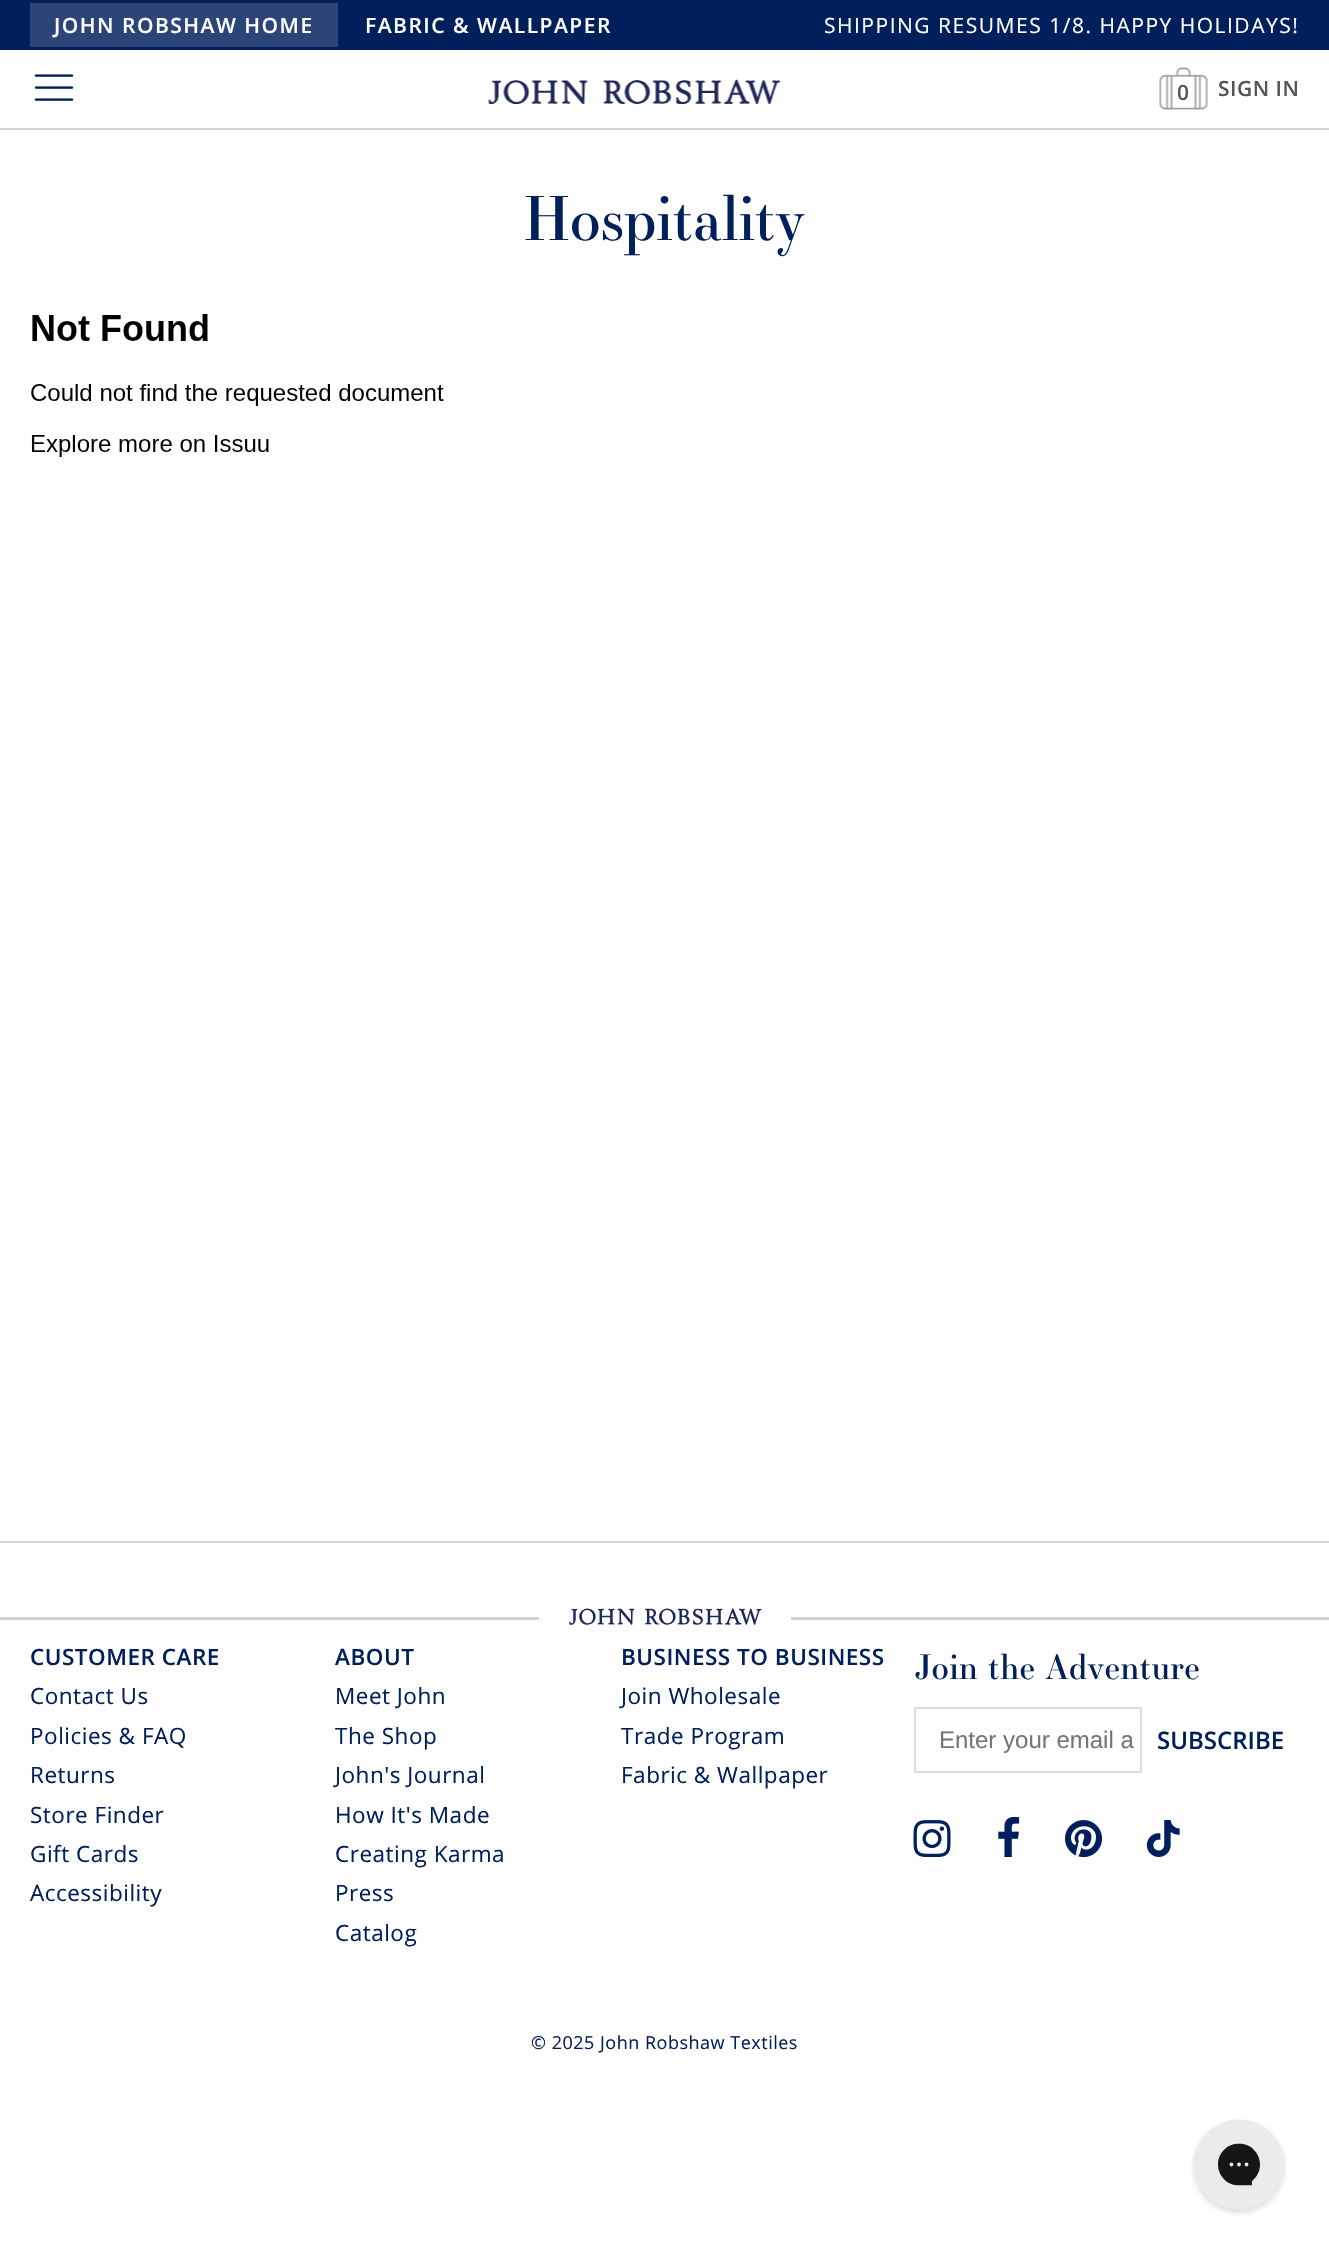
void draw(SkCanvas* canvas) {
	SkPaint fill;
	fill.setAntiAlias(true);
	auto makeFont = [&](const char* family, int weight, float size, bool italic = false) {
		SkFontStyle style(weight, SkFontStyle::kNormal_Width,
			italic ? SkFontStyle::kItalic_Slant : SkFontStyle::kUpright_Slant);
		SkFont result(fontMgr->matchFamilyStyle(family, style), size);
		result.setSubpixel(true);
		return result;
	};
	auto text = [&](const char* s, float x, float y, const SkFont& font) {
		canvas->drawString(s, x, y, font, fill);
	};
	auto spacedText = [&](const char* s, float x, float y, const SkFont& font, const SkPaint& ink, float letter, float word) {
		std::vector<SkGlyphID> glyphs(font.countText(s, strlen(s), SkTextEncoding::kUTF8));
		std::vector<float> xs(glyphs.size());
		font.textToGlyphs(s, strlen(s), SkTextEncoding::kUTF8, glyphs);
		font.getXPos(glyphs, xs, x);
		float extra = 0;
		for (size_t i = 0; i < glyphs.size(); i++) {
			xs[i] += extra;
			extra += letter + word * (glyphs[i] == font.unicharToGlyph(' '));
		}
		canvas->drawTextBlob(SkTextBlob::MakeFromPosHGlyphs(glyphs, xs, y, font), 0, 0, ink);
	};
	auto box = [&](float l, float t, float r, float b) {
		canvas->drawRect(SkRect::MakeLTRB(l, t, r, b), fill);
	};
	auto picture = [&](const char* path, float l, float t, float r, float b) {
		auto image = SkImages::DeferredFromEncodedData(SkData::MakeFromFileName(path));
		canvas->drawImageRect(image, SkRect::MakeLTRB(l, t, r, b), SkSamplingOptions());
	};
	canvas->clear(0xFFFFFFFF);
	fill.setColor(0xFFD0D4D8);
	box(0, 128, 1329, 130);
	fill.setColor(0xFF001F5B);
	box(0, 0, 1329, 50);
	fill.setColor(0xFF2C4578);
	box(30, 3, 338, 47);
	picture("image0.png", 34, 74, 74, 101);
	picture("image1.png", 488, 79, 781, 104);
	picture("image2.png", 1159, 67, 1208, 110);
	picture("image3.png", 31, 314, 444, 457);
	fill.setColor(0xFFD0D4D8);
	box(0, 1541, 1329, 1543);
	box(0, 1617, 539, 1620);
	picture("image4.png", 569, 1608, 762, 1625);
	box(791, 1617, 1329, 1620);
	fill.setStyle(SkPaint::kStroke_Style);
	fill.setStrokeWidth(2);
	fill.setColor(0xFFDDDDDD);
	canvas->drawRect(SkRect::MakeLTRB(915, 1708, 1141, 1772), fill);
	picture("image5.png", 913, 1820, 951, 1858);
	picture("image6.png", 998, 1817, 1020, 1858);
	picture("image7.png", 1065, 1820, 1102, 1858);
	picture("image8.png", 1146, 1820, 1180, 1857);
	picture("image9.png", 1191, 2119, 1287, 2216);
	auto font1 = makeFont("Open Sans", 600, 21);
	fill.setStyle(SkPaint::kFill_Style);
	fill.setColor(0xFFFFFFFF);
	spacedText("JOHN ROBSHAW HOME", 54, 33, font1, fill, 1.5f, 0);
	spacedText("FABRIC & WALLPAPER", 365, 33, font1, fill, 1.5f, 0);
	auto font2 = makeFont("Open Sans", 400, 21);
	spacedText("SHIPPING RESUMES 1/8. HAPPY HOLIDAYS!", 824, 33, font2, fill, 1.5f, 0);
	fill.setColor(0xFF555555);
	spacedText("0", 1177, 100, font1, fill, 0.5f, 0);
	spacedText("SIGN IN", 1218, 96, font1, fill, 0.5f, 0);
	auto font3 = makeFont("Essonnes", 400, 60);
	fill.setColor(0xFF001F5B);
	text("Hospitality", 524, 240, font3);
	auto font4 = makeFont("Open Sans", 600, 22.5f);
	spacedText("CUSTOMER CARE", 30, 1665, font4, fill, 0.5f, 0);
	auto font5 = makeFont("Open Sans", 400, 22.5f);
	spacedText("Contact Us", 30, 1704, font5, fill, 0.5f, 0);
	spacedText("Policies & FAQ", 30, 1744, font5, fill, 0.5f, 0);
	spacedText("Returns", 30, 1783, font5, fill, 0.5f, 0);
	spacedText("Store Finder", 30, 1823, font5, fill, 0.5f, 0);
	spacedText("Gift Cards", 30, 1862, font5, fill, 0.5f, 0);
	spacedText("Accessibility", 30, 1901, font5, fill, 0.5f, 0);
	spacedText("ABOUT", 335, 1665, font4, fill, 0.5f, 0);
	spacedText("Meet John", 335, 1704, font5, fill, 0.5f, 0);
	spacedText("The Shop", 335, 1744, font5, fill, 0.5f, 0);
	spacedText("John's Journal", 335, 1783, font5, fill, 0.5f, 0);
	spacedText("How It's Made", 335, 1823, font5, fill, 0.5f, 0);
	spacedText("Creating Karma", 335, 1862, font5, fill, 0.5f, 0);
	spacedText("Press", 335, 1901, font5, fill, 0.5f, 0);
	spacedText("Catalog", 335, 1941, font5, fill, 0.5f, 0);
	spacedText("BUSINESS TO BUSINESS", 621, 1665, font4, fill, 0.5f, 0);
	spacedText("Join Wholesale", 621, 1704, font5, fill, 0.5f, 0);
	spacedText("Trade Program", 621, 1744, font5, fill, 0.5f, 0);
	spacedText("Fabric & Wallpaper", 621, 1783, font5, fill, 0.5f, 0);
	auto font6 = makeFont("Essonnes", 400, 33.5f);
	spacedText("Join the Adventure", 914, 1679, font6, fill, 0.5f, 0);
	auto font7 = makeFont("Liberation Sans", 400, 24);
	fill.setColor(0xFF767676);
	text("Enter your email a", 939, 1748, font7);
	auto font8 = makeFont("Open Sans", 600, 24);
	fill.setColor(0xFF001F5B);
	text("SUBSCRIBE", 1157, 1749, font8);
	auto font9 = makeFont("Open Sans", 400, 18);
	spacedText("© 2025 John Robshaw Textiles", 531, 2049, font9, fill, 0.5f, 0);
}
